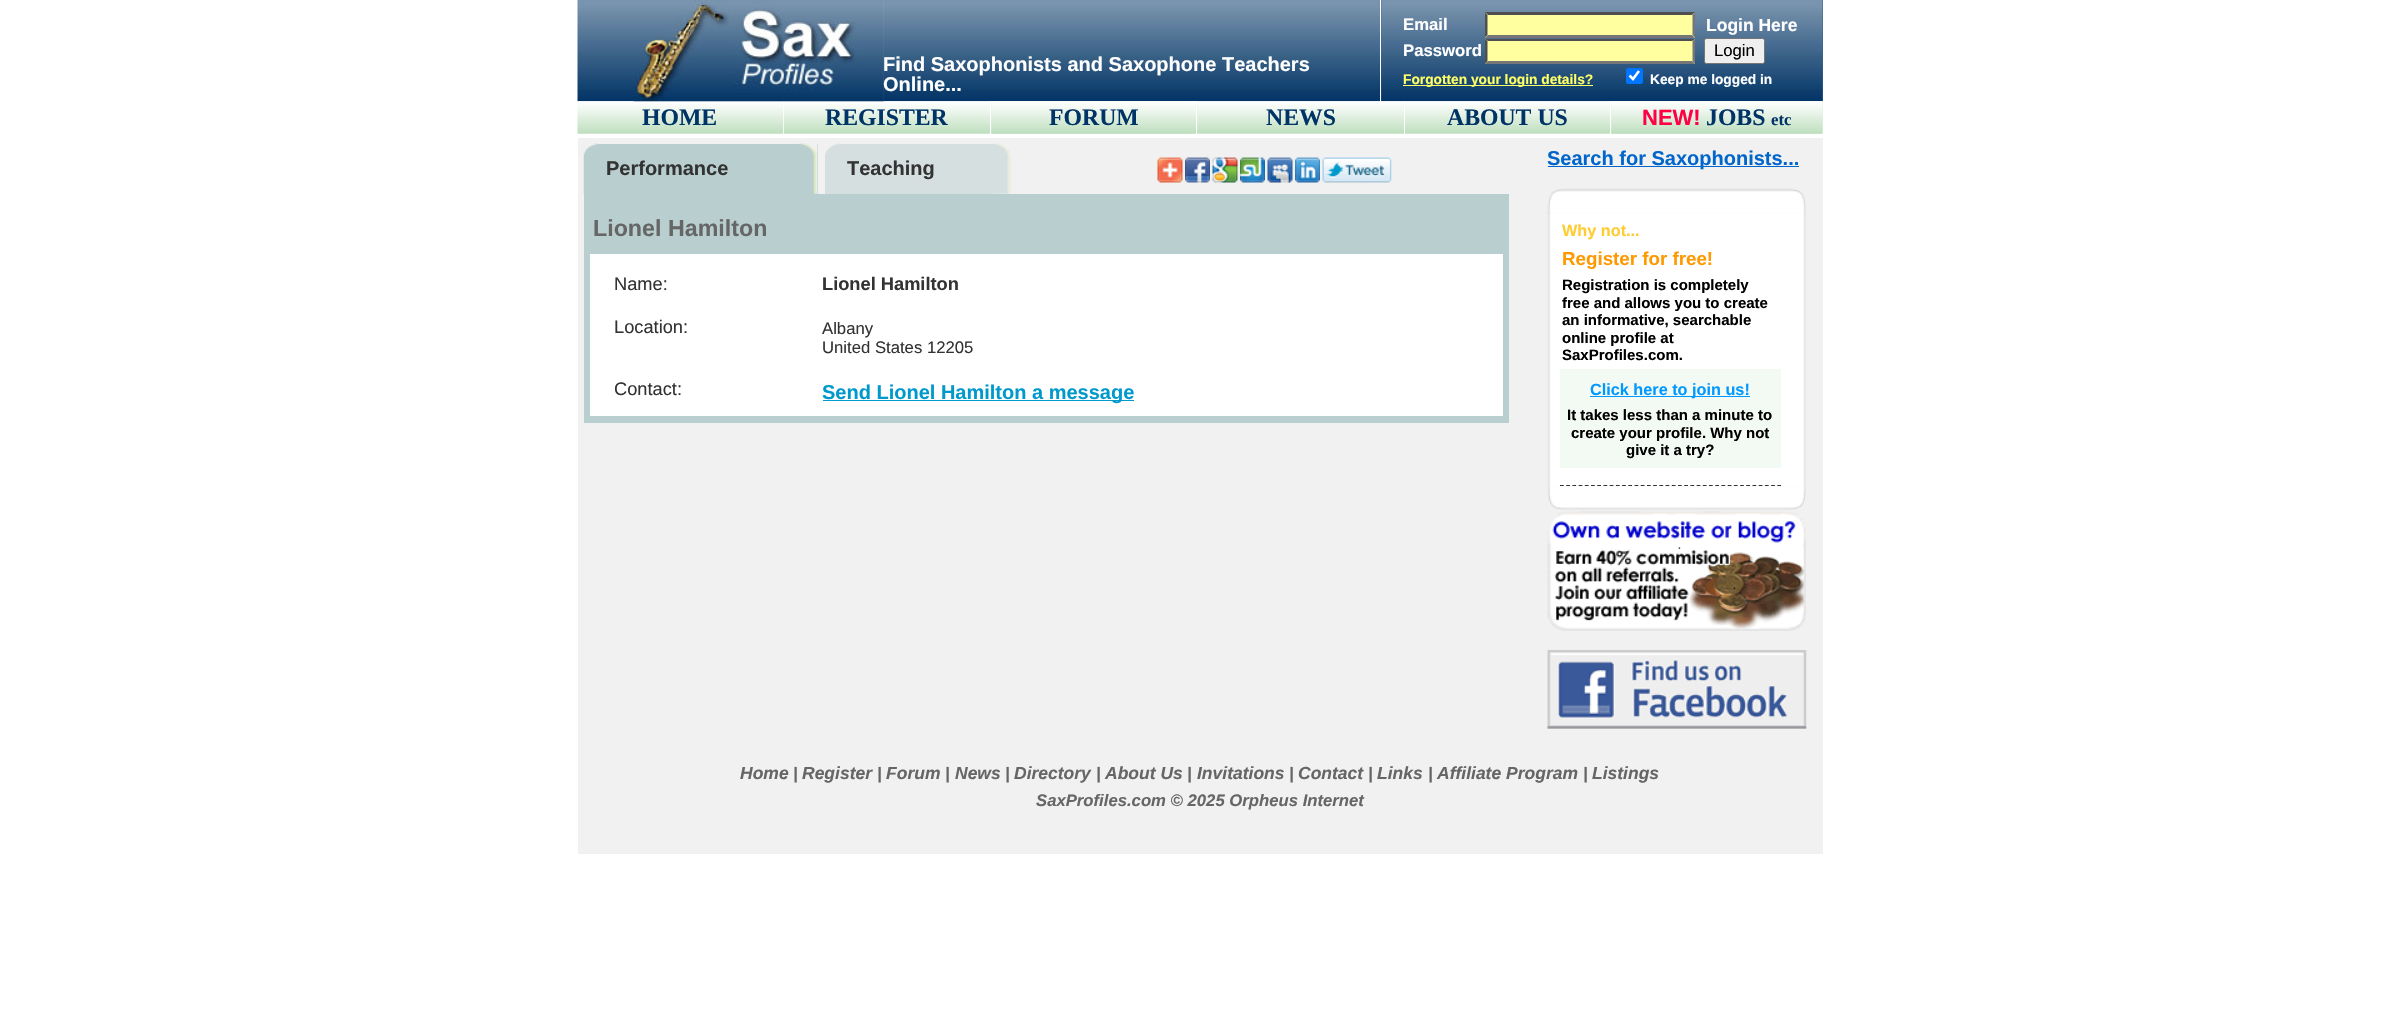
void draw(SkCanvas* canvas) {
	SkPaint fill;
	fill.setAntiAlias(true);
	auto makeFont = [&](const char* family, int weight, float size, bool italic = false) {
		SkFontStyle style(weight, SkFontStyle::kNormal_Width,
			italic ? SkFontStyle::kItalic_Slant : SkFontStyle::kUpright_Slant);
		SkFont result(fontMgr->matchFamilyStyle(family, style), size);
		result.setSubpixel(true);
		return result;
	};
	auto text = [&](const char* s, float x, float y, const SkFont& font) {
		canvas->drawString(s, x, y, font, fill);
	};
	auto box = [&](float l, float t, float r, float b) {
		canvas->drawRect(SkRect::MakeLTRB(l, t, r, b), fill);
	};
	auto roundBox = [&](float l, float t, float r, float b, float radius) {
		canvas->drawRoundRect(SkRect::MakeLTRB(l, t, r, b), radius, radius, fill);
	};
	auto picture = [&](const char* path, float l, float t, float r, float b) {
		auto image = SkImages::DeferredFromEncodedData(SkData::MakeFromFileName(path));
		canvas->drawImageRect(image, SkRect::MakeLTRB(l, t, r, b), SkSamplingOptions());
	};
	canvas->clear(0xFFFFFFFF);
	picture("image0.png", 577, 0, 884, 102);
	picture("image2.png", 883, 0, 1382, 102);
	picture("image4.png", 577, 101, 783, 134);
	fill.setColor(0xFFFFFFFF);
	box(783, 101, 784, 102);
	picture("image5.png", 783, 101, 990, 134);
	picture("image1.png", 633, 0, 884, 102);
	box(1380, 0, 1381, 101);
	fill.setColor(0xFF376187);
	box(1381, 0, 1823, 101);
	picture("image3.png", 1381, 0, 1823, 102);
	fill.setColor(0xFFFFFFA0);
	box(1485, 13, 1695, 38);
	fill.setColor(0xFF4F4F4F);
	canvas->drawPath(SkPathBuilder().moveTo(1485, 12).lineTo(1695, 12).lineTo(1692, 15).lineTo(1488, 15).close().detach(), fill);
	fill.setColor(0xFF767676);
	canvas->drawPath(SkPathBuilder().moveTo(1695, 12.5f).lineTo(1695, 37.5f).lineTo(1692.5f, 35).lineTo(1692.5f, 15).close().detach(), fill);
	canvas->drawPath(SkPathBuilder().moveTo(1695, 38).lineTo(1485, 38).lineTo(1488, 35).lineTo(1692, 35).close().detach(), fill);
	fill.setColor(0xFF4F4F4F);
	canvas->drawPath(SkPathBuilder().moveTo(1485, 37.5f).lineTo(1485, 12.5f).lineTo(1487.5f, 15).lineTo(1487.5f, 35).close().detach(), fill);
	fill.setColor(0xFFFFFFA0);
	box(1485, 39, 1695, 64);
	fill.setColor(0xFF4F4F4F);
	canvas->drawPath(SkPathBuilder().moveTo(1485, 39).lineTo(1695, 39).lineTo(1692, 41).lineTo(1488, 41).close().detach(), fill);
	fill.setColor(0xFF767676);
	canvas->drawPath(SkPathBuilder().moveTo(1695, 39).lineTo(1695, 64).lineTo(1692.5f, 61).lineTo(1692.5f, 41).close().detach(), fill);
	canvas->drawPath(SkPathBuilder().moveTo(1695, 64).lineTo(1485, 64).lineTo(1488, 61).lineTo(1692, 61).close().detach(), fill);
	fill.setColor(0xFF4F4F4F);
	canvas->drawPath(SkPathBuilder().moveTo(1485, 64).lineTo(1485, 39).lineTo(1487.5f, 41).lineTo(1487.5f, 61).close().detach(), fill);
	fill.setColor(0xFFEFEFEF);
	canvas->drawRoundRect(SkRect::MakeLTRB(1704.5f, 38.5f, 1764.5f, 63.5f), 2, 2, fill);
	fill.setStyle(SkPaint::kStroke_Style);
	fill.setStrokeWidth(1);
	fill.setColor(0xFF767676);
	canvas->drawRoundRect(SkRect::MakeLTRB(1704.5f, 38.5f, 1764.5f, 63.5f), 2, 2, fill);
	fill.setStyle(SkPaint::kFill_Style);
	fill.setColor(0xFFFFFF66);
	box(1403, 85, 1593, 86);
	fill.setColor(0xFF0075FF);
	roundBox(1626, 68, 1643, 84, 2.5f);
	fill.setStyle(SkPaint::kStroke_Style);
	fill.setStrokeWidth(2.6f);
	fill.setColor(0xFFFFFFFF);
	canvas->drawPath(SkPathBuilder().moveTo(1629.5f, 75.5f).lineTo(1633, 79).lineTo(1639, 71).detach(), fill);
	fill.setStyle(SkPaint::kFill_Style);
	box(990, 101, 991, 102);
	fill.setColor(0xFFE3F1E2);
	box(991, 101, 1198, 134);
	picture("image6.png", 991, 101, 1198, 134);
	fill.setColor(0xFFFFFFFF);
	box(1196, 101, 1197, 134);
	picture("image7.png", 1197, 101, 1404, 134);
	box(1404, 101, 1405, 102);
	picture("image8.png", 1405, 101, 1610, 134);
	box(1610, 101, 1611, 102);
	fill.setColor(0xFFE3F1E2);
	box(1611, 101, 1823, 134);
	picture("image9.png", 1611, 101, 1823, 134);
	fill.setColor(0xFFF1F1F1);
	box(578, 138, 1823, 854);
	fill.setColor(0xFFB9CECE);
	box(584, 144, 818, 194);
	picture("image10.png", 583, 143, 599, 194);
	picture("image11.png", 799, 143, 818, 194);
	fill.setColor(0xFFD5DFDF);
	box(825, 155, 840, 194);
	picture("image12.png", 825, 143, 840, 155);
	box(840, 144, 993, 194);
	picture("image13.png", 993, 143, 1011, 194);
	picture("image14.png", 1157, 157, 1183, 183);
	picture("image15.png", 1185, 157, 1210, 183);
	picture("image16.png", 1212, 157, 1238, 183);
	picture("image17.png", 1240, 157, 1265, 183);
	picture("image18.png", 1267, 157, 1293, 183);
	picture("image19.png", 1295, 157, 1320, 183);
	picture("image20.png", 1322, 157, 1392, 183);
	fill.setColor(0xFFB9CECE);
	box(584, 194, 1509, 423);
	fill.setColor(0xFFFFFFFF);
	box(590, 254, 1503, 416);
	fill.setColor(0xFF0099CC);
	box(823, 400, 1134, 401);
	fill.setColor(0xFF0066CC);
	box(1548, 166, 1799, 167);
	picture("image21.png", 1547, 188, 1806, 214);
	picture("image22.png", 1547, 214, 1806, 486);
	fill.setColor(0xFFF3F9F3);
	box(1560, 369, 1781, 468);
	fill.setColor(0xFF0099FF);
	box(1590, 396, 1750, 397);
	fill.setStyle(SkPaint::kStroke_Style);
	fill.setStrokeWidth(1.2f);
	fill.setColor(0xFF333333);
	fill.setPathEffect(SkDashPathEffect::Make({{3.75f, 2.46f}}, 0));
	canvas->drawPath(SkPathBuilder().moveTo(1560, 485.5f).lineTo(1781, 485.5f).detach(), fill);
	fill.setPathEffect(nullptr);
	picture("image23.png", 1547, 486, 1806, 510);
	picture("image24.png", 1547, 511, 1806, 631);
	picture("image25.png", 1547, 650, 1807, 729);
	auto font1 = makeFont("Liberation Sans", 700, 20);
	fill.setStyle(SkPaint::kFill_Style);
	fill.setColor(0xFFFFFFFF);
	text("Find Saxophonists and Saxophone Teachers", 883, 71, font1);
	text("Online...", 883, 91, font1);
	auto font2 = makeFont("Liberation Sans", 700, 16.7f);
	text("Email", 1403, 30, font2);
	auto font3 = makeFont("Liberation Sans", 700, 17.5f);
	text("Login Here", 1706, 31, font3);
	text("Password", 1403, 56, font2);
	auto font4 = makeFont("Liberation Sans", 400, 16.7f);
	fill.setColor(0xFF000000);
	text("Login", 1714, 56, font4);
	auto font5 = makeFont("Liberation Sans", 700, 13.75f);
	fill.setColor(0xFFFFFF66);
	text("Forgotten your login details?", 1403, 84, font5);
	fill.setColor(0xFFFFFFFF);
	text("Keep me logged in", 1650, 84, font5);
	auto font6 = makeFont("Liberation Serif", 700, 23.75f);
	fill.setColor(0xFF003366);
	text("HOME", 642, 125, font6);
	text("REGISTER", 825, 125, font6);
	text("FORUM", 1049, 125, font6);
	text("NEWS", 1266, 125, font6);
	text("ABOUT US", 1447, 125, font6);
	auto font7 = makeFont("Liberation Sans", 700, 22);
	fill.setColor(0xFFFF0044);
	text("NEW!", 1642, 125, font7);
	fill.setColor(0xFF003366);
	text("JOBS", 1706, 125, font6);
	auto font8 = makeFont("Liberation Serif", 700, 16.7f);
	text("etc", 1771, 125, font8);
	fill.setColor(0xFF333333);
	text("Performance", 606, 175, font1);
	text("Teaching", 847, 175, font1);
	auto font9 = makeFont("Liberation Sans", 700, 23.25f);
	fill.setColor(0xFF666666);
	text("Lionel Hamilton", 593, 236, font9);
	auto font10 = makeFont("Liberation Sans", 400, 18.25f);
	fill.setColor(0xFF333333);
	text("Name:", 614, 290, font10);
	auto font11 = makeFont("Liberation Sans", 700, 18.25f);
	text("Lionel Hamilton", 822, 290, font11);
	text("Location:", 614, 333, font10);
	text("Albany", 822, 334, font4);
	text("United States 12205", 822, 353, font4);
	text("Contact:", 614, 395, font10);
	fill.setColor(0xFF0099CC);
	text("Send Lionel Hamilton a message", 822, 399, font1);
	fill.setColor(0xFF0066CC);
	text("Search for Saxophonists...", 1547, 165, font1);
	auto font12 = makeFont("Liberation Sans", 700, 16.25f);
	fill.setColor(0xFFFFCC33);
	text("Why not...", 1562, 236, font12);
	auto font13 = makeFont("Liberation Sans", 700, 18.75f);
	fill.setColor(0xFFFF9900);
	text("Register for free!", 1562, 265, font13);
	auto font14 = makeFont("Liberation Sans", 700, 15);
	fill.setColor(0xFF000000);
	text("Registration is completely", 1562, 290, font14);
	text("free and allows you to create", 1562, 308, font14);
	text("an informative, searchable", 1562, 325, font14);
	text("online profile at", 1562, 343, font14);
	text("SaxProfiles.com.", 1562, 360, font14);
	fill.setColor(0xFF0099FF);
	text("Click here to join us!", 1590, 395, font12);
	fill.setColor(0xFF000000);
	text("It takes less than a minute to", 1567, 420, font14);
	text("create your profile. Why not", 1571, 438, font14);
	text("give it a try?", 1626, 455, font14);
	auto font15 = makeFont("Liberation Sans", 700, 17.5f, true);
	fill.setColor(0xFF666666);
	text("Home", 740, 779, font15);
	auto font16 = makeFont("Liberation Sans", 700, 16.7f, true);
	text("|", 793, 779, font16);
	text("Register", 802, 779, font15);
	text("|", 877, 779, font16);
	text("Forum", 886, 779, font15);
	text("|", 945, 779, font16);
	text("News", 955, 779, font15);
	text("|", 1005, 779, font16);
	text("Directory", 1014, 779, font15);
	text("|", 1096, 779, font16);
	text("About Us", 1105, 779, font15);
	text("|", 1187, 779, font16);
	text("Invitations", 1197, 779, font15);
	text("|", 1289, 779, font16);
	text("Contact", 1298, 779, font15);
	text("|", 1368, 779, font16);
	text("Links", 1377, 779, font15);
	text("|", 1428, 779, font16);
	text("Affiliate Program", 1437, 779, font15);
	text("|", 1583, 779, font16);
	text("Listings", 1592, 779, font15);
	text("SaxProfiles.com © 2025 Orpheus Internet", 1036, 806, font16);
}
